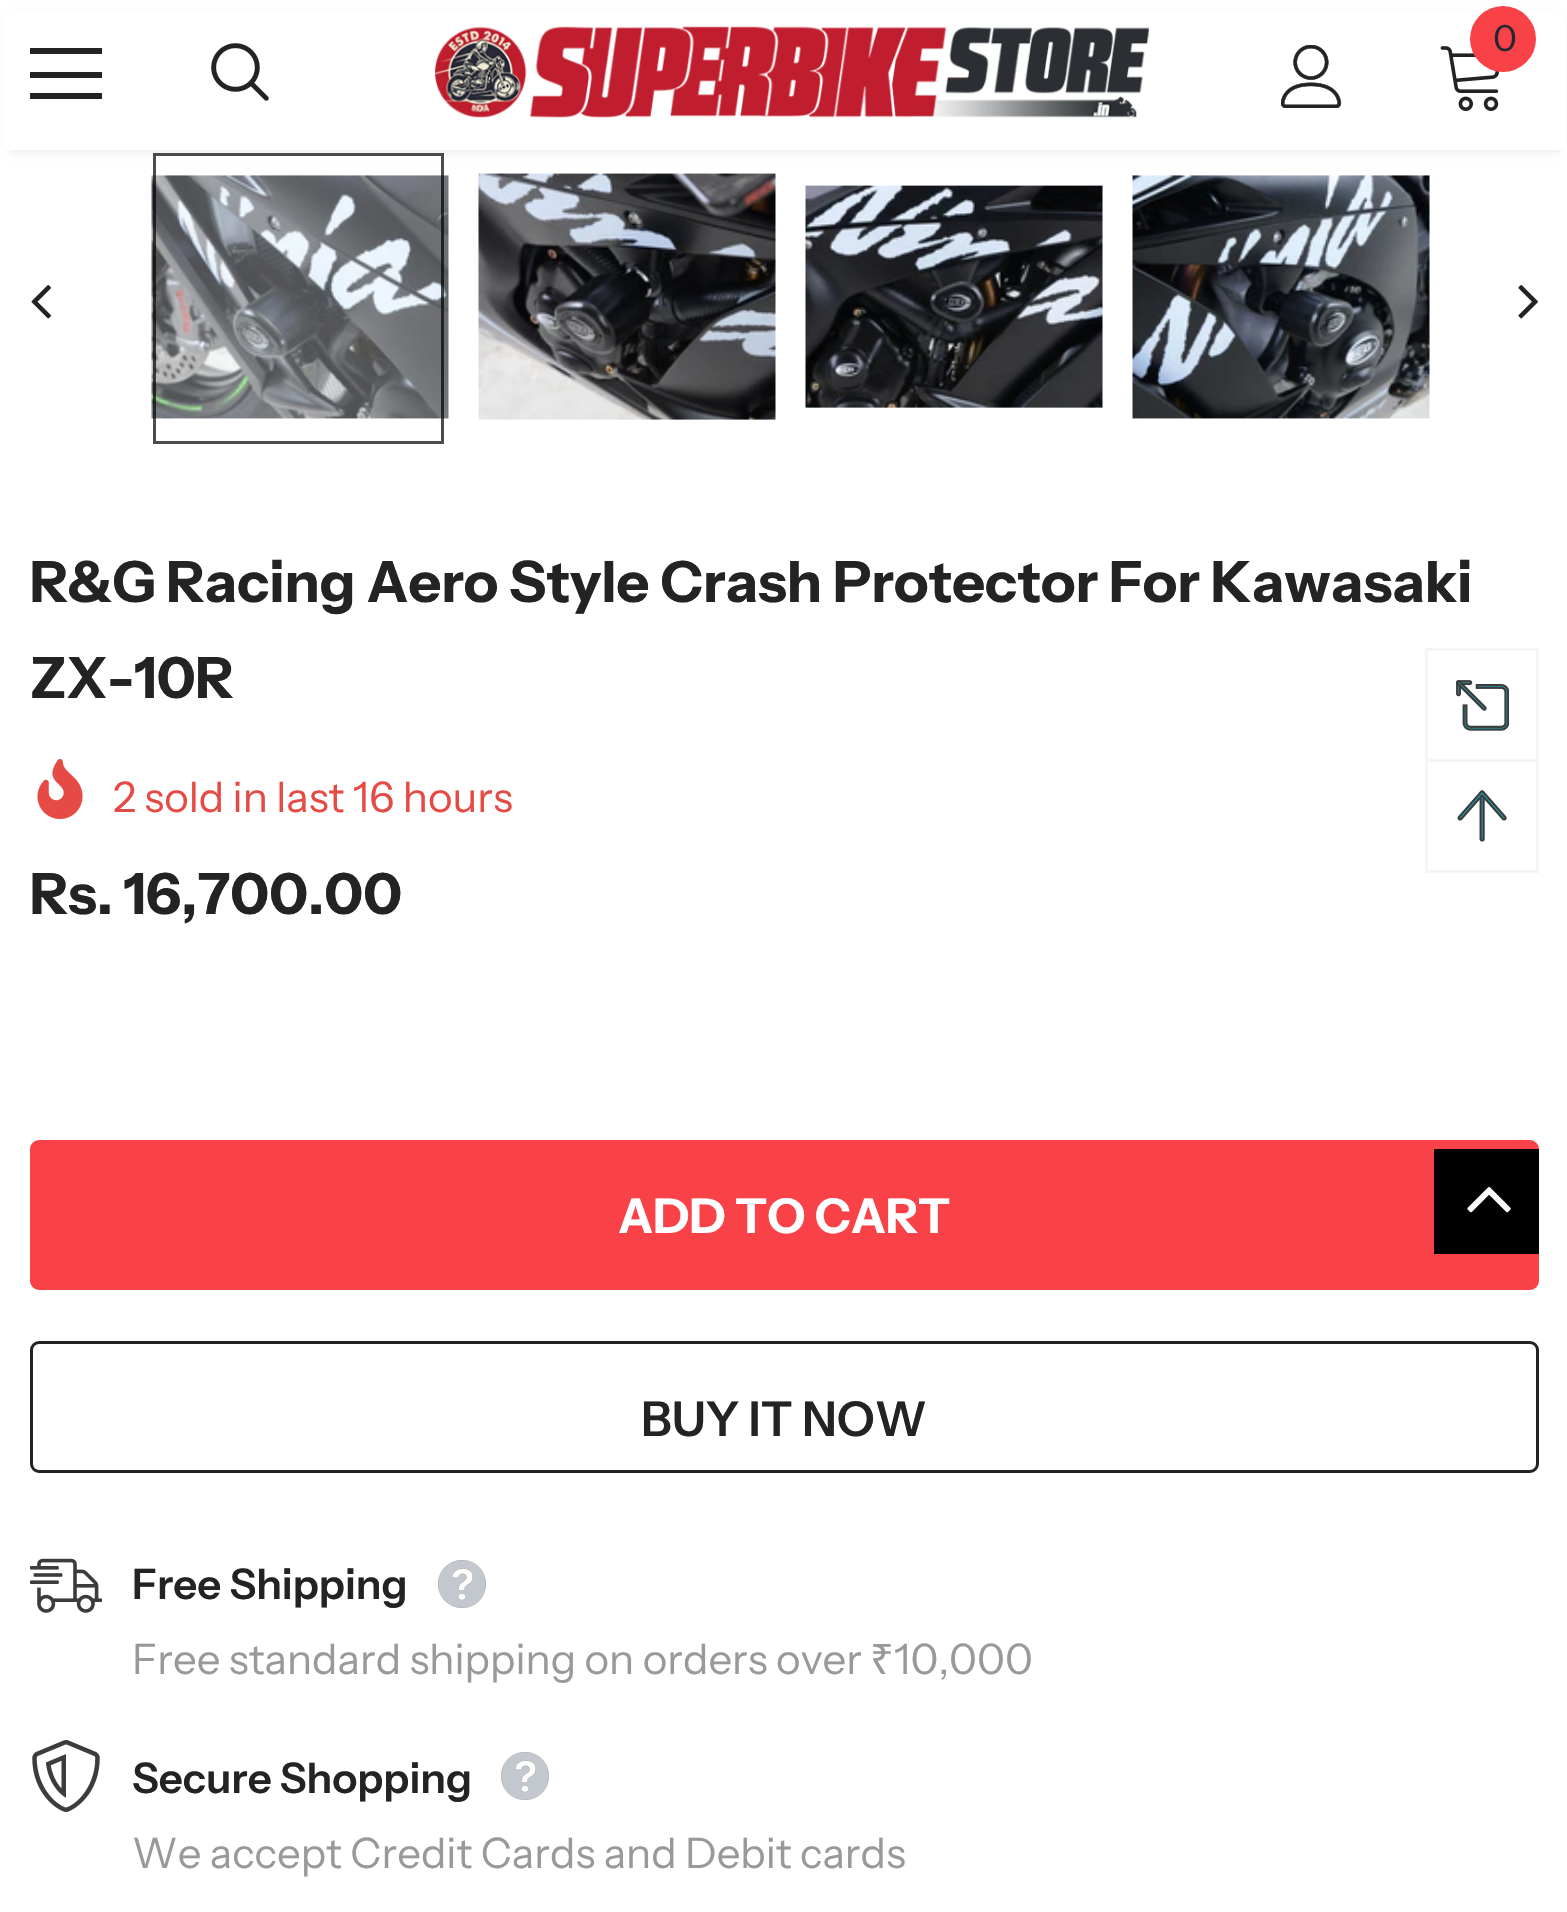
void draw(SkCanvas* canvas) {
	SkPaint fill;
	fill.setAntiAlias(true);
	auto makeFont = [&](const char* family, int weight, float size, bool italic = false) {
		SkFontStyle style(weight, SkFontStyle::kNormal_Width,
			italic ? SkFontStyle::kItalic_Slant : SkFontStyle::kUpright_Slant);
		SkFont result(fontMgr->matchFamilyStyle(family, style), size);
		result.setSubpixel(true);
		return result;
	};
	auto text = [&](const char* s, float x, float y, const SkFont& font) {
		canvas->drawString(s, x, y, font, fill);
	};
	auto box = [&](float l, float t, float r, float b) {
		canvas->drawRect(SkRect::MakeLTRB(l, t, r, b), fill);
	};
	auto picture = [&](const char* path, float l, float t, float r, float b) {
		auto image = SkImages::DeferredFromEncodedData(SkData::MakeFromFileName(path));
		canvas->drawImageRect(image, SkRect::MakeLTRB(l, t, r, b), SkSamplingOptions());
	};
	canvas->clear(0xFFFFFFFF);
	picture("image5.png", 151, 175, 449, 419);
	fill.setStyle(SkPaint::kStroke_Style);
	fill.setStrokeWidth(3);
	fill.setColor(0xB3000000);
	canvas->drawRect(SkRect::MakeLTRB(154.5f, 154.5f, 442.5f, 442.5f), fill);
	fill.setStyle(SkPaint::kFill_Style);
	fill.setColor(0x1F000000);
	fill.setMaskFilter(SkMaskFilter::MakeBlur(kNormal_SkBlurStyle, 4.5f));
	canvas->drawRect(SkRect::MakeLTRB(9, 18, 1560, 150), fill);
	fill.setMaskFilter(nullptr);
	fill.setColor(0xFFFFFFFF);
	box(3, 12, 1566, 150);
	fill.setColor(0xFF232323);
	box(30, 48, 102, 54);
	box(30, 72, 102, 78);
	box(30, 93, 102, 99);
	picture("image0.png", 211, 43, 269, 101);
	picture("image1.png", 435, 26, 1149, 118);
	picture("image2.png", 1440, 46, 1500, 111);
	fill.setColor(0xFFF84248);
	canvas->drawCircle(1503, 39, 33, fill);
	picture("image3.png", 1281, 45, 1342, 108);
	picture("image4.png", 31, 285, 51, 319);
	picture("image6.png", 478, 173, 776, 420);
	picture("image7.png", 805, 185, 1103, 408);
	picture("image8.png", 1132, 175, 1430, 419);
	picture("image9.png", 1518, 285, 1538, 319);
	picture("image10.png", 37, 759, 83, 819);
	canvas->drawRoundRect(SkRect::MakeLTRB(31.5f, 1141.5f, 1537.5f, 1288.5f), 7.5f, 7.5f, fill);
	fill.setStyle(SkPaint::kStroke_Style);
	canvas->drawRoundRect(SkRect::MakeLTRB(31.5f, 1141.5f, 1537.5f, 1288.5f), 7.5f, 7.5f, fill);
	fill.setColor(0xFF232323);
	canvas->drawRoundRect(SkRect::MakeLTRB(31.5f, 1342.5f, 1537.5f, 1471.5f), 7.5f, 7.5f, fill);
	picture("image11.png", 30, 1558, 102, 1613);
	picture("image12.png", 438, 1560, 486, 1608);
	picture("image13.png", 32, 1740, 100, 1812);
	picture("image12.png", 501, 1752, 549, 1800);
	fill.setStyle(SkPaint::kFill_Style);
	fill.setColor(0xFF000000);
	box(1434, 1149, 1539, 1254);
	picture("image14.png", 1467, 1187, 1511, 1213);
	fill.setColor(0xFFF5F5F6);
	box(1425, 648, 1539, 651);
	box(1536, 648, 1539, 759);
	box(1425, 648, 1428, 759);
	picture("image15.png", 1456, 680, 1509, 731);
	fill.setStyle(SkPaint::kStroke_Style);
	canvas->drawRect(SkRect::MakeLTRB(1426.5f, 760.5f, 1537.5f, 871.5f), fill);
	picture("image16.png", 1457, 790, 1507, 842);
	auto font1 = makeFont("Instrument Sans", 400, 36);
	fill.setStyle(SkPaint::kFill_Style);
	fill.setColor(0xFF232830);
	text("0", 1493, 51, font1);
	auto font2 = makeFont("Instrument Sans", 700, 57);
	fill.setColor(0xFF232323);
	text("R&G Racing Aero Style Crash Protector For Kawasaki", 30, 602, font2);
	text("ZX-10R", 30, 698, font2);
	auto font3 = makeFont("Instrument Sans", 400, 42);
	fill.setColor(0xFFE64A44);
	text("2 sold in last 16 hours", 113, 812, font3);
	fill.setColor(0xFF232323);
	text("Rs. 16,700.00", 30, 914, font2);
	auto font4 = makeFont("Instrument Sans", 700, 48);
	fill.setColor(0xFFFFFFFF);
	text("ADD TO CART", 618, 1233, font4);
	auto font5 = makeFont("Instrument Sans", 600, 48);
	fill.setColor(0xFF232323);
	text("BUY IT NOW", 641, 1436, font5);
	auto font6 = makeFont("Instrument Sans", 600, 42);
	text("Free Shipping", 132, 1599, font6);
	fill.setColor(0xFF999999);
	text("Free standard shipping on orders over", 132, 1674, font3);
	auto font7 = makeFont("Noto Sans", 400, 42);
	text("₹", 870, 1674, font7);
	text("10,000", 894, 1674, font3);
	fill.setColor(0xFF232323);
	text("Secure Shopping", 132, 1793, font6);
	fill.setColor(0xFF999999);
	text("We accept Credit Cards and Debit cards", 132, 1868, font3);
}
